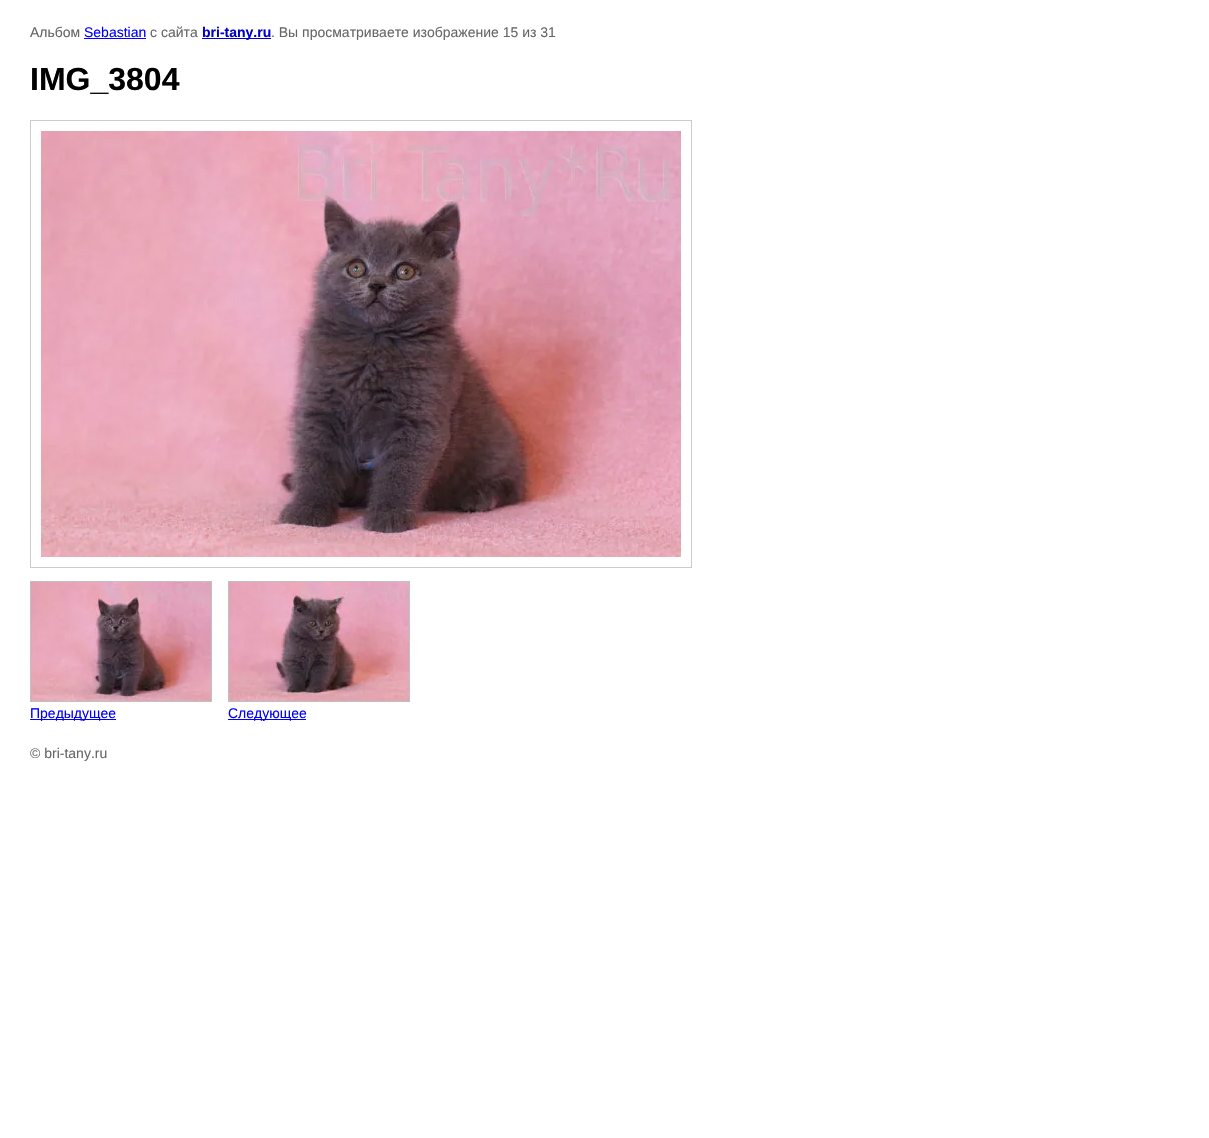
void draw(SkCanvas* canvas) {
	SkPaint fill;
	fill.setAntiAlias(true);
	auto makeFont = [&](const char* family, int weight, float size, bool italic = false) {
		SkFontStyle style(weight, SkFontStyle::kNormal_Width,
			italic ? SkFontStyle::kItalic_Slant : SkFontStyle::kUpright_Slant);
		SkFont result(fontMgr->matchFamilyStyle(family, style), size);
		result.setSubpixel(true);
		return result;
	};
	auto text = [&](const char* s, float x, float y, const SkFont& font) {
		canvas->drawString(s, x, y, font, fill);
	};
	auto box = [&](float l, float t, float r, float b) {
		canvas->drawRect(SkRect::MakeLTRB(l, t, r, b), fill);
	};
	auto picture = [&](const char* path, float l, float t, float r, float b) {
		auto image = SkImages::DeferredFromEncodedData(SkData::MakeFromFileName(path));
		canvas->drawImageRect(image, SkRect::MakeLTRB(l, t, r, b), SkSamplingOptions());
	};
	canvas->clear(0xFFFFFFFF);
	fill.setColor(0xFF0000FF);
	box(84, 38, 146, 39);
	fill.setColor(0xFF0000CC);
	box(202, 38, 271, 39);
	fill.setStyle(SkPaint::kStroke_Style);
	fill.setStrokeWidth(1);
	fill.setColor(0xFFCCCCCC);
	canvas->drawRect(SkRect::MakeLTRB(30.5f, 120.5f, 691.5f, 567.5f), fill);
	picture("image0.png", 41, 131, 681, 557);
	fill.setColor(0xFFC0C0C0);
	canvas->drawRect(SkRect::MakeLTRB(30.5f, 581.5f, 211.5f, 701.5f), fill);
	picture("image1.png", 31, 582, 211, 701);
	fill.setStyle(SkPaint::kFill_Style);
	fill.setColor(0xFF0000FF);
	box(30, 719, 116, 720);
	fill.setStyle(SkPaint::kStroke_Style);
	fill.setColor(0xFFC0C0C0);
	canvas->drawRect(SkRect::MakeLTRB(228.5f, 581.5f, 409.5f, 701.5f), fill);
	picture("image2.png", 229, 582, 409, 701);
	fill.setStyle(SkPaint::kFill_Style);
	fill.setColor(0xFF0000FF);
	box(228, 719, 306, 720);
	auto font1 = makeFont("Liberation Sans", 400, 14);
	fill.setColor(0xFF666666);
	text("Альбом", 30, 37, font1);
	fill.setColor(0xFF0000FF);
	text("Sebastian", 84, 37, font1);
	fill.setColor(0xFF666666);
	text("с сайта", 150, 37, font1);
	auto font2 = makeFont("Liberation Sans", 700, 14);
	fill.setColor(0xFF0000CC);
	text("bri-tany.ru", 202, 37, font2);
	fill.setColor(0xFF666666);
	text(". Вы просматриваете изображение 15 из 31", 271, 37, font1);
	auto font3 = makeFont("Liberation Sans", 700, 32);
	fill.setColor(0xFF000000);
	text("IMG_3804", 30, 90, font3);
	fill.setColor(0xFF0000FF);
	text("Предыдущее", 30, 718, font1);
	text("Следующее", 228, 718, font1);
	fill.setColor(0xFF666666);
	text("© bri-tany.ru", 30, 758, font1);
}
